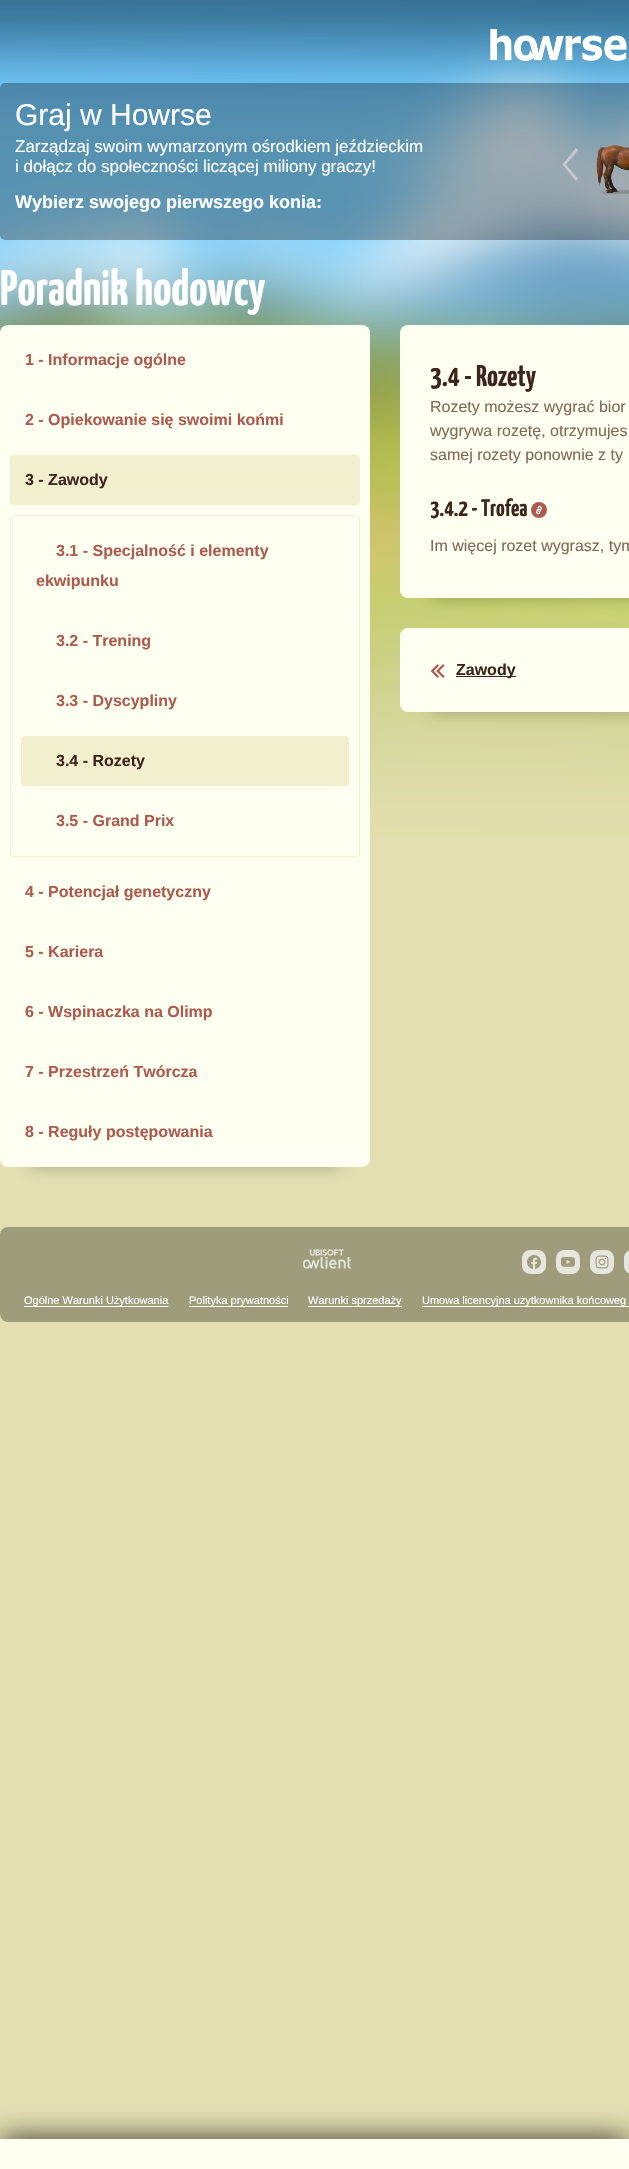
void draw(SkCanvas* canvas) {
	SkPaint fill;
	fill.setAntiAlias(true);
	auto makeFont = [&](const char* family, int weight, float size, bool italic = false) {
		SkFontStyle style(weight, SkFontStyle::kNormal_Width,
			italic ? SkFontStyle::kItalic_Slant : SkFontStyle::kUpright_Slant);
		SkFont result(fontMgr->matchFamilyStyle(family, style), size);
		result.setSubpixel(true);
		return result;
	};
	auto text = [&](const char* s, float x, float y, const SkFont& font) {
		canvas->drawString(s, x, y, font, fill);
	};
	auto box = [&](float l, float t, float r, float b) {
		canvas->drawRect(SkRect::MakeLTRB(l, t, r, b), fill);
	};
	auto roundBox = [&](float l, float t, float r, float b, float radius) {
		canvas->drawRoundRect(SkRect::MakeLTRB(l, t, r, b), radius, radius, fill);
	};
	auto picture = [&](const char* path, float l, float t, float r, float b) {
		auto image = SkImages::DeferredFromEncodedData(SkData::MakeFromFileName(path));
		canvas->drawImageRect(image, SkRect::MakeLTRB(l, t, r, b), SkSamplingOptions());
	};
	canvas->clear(0xFFE3DFB1);
	picture("image0.png", 0, 0, 629, 838);
	picture("image1.png", 490, 29, 627, 61);
	fill.setColor(0x4D000000);
	roundBox(0, 83, 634, 240, 5);
	fill.setColor(0xFFC6CACE);
	canvas->drawPath(SkPathBuilder().moveTo(564, 162.5f).lineTo(578, 178.5f).lineTo(576, 181).lineTo(562.5f, 164.5f).close().detach(), fill);
	canvas->drawPath(SkPathBuilder().moveTo(576, 148).lineTo(578, 150.5f).lineTo(564, 166.5f).lineTo(562.5f, 164.5f).close().detach(), fill);
	picture("image2.png", 596, 145, 629, 194);
	fill.setColor(0x4D000000);
	fill.setMaskFilter(SkMaskFilter::MakeBlur(kNormal_SkBlurStyle, 7.5f));
	canvas->drawRoundRect(SkRect::MakeLTRB(30, 1157, 340, 1167), 5, 5, fill);
	fill.setMaskFilter(nullptr);
	fill.setColor(0xFFFDFFF0);
	roundBox(0, 325, 370, 1167, 8);
	fill.setColor(0xFFF2EFCF);
	roundBox(10, 455, 360, 505, 4);
	roundBox(21, 736, 349, 786, 4);
	fill.setStyle(SkPaint::kStroke_Style);
	fill.setStrokeWidth(1);
	canvas->drawRoundRect(SkRect::MakeLTRB(10.5f, 515.5f, 359.5f, 856.5f), 3.5f, 3.5f, fill);
	fill.setStyle(SkPaint::kFill_Style);
	fill.setColor(0x4D000000);
	fill.setMaskFilter(SkMaskFilter::MakeBlur(kNormal_SkBlurStyle, 7.5f));
	canvas->drawRoundRect(SkRect::MakeLTRB(430, 588, 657, 598), 5, 5, fill);
	fill.setMaskFilter(nullptr);
	fill.setColor(0xFFFDFFF0);
	roundBox(400, 325, 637, 598, 8);
	fill.setColor(0xFFAD5B50);
	canvas->drawCircle(539, 510, 8, fill);
	picture("image3.png", 536, 505, 542, 515);
	fill.setColor(0x4D000000);
	fill.setMaskFilter(SkMaskFilter::MakeBlur(kNormal_SkBlurStyle, 7.5f));
	canvas->drawRoundRect(SkRect::MakeLTRB(430, 702, 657, 712), 5, 5, fill);
	fill.setMaskFilter(nullptr);
	fill.setColor(0xFFFDFFF0);
	roundBox(400, 628, 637, 712, 8);
	picture("image4.png", 431, 664, 445, 678);
	fill.setColor(0xFF3D251B);
	box(456, 676, 516, 677);
	fill.setColor(0xCC000000);
	fill.setMaskFilter(SkMaskFilter::MakeBlur(kNormal_SkBlurStyle, 15));
	canvas->drawRect(SkRect::MakeLTRB(0, 2139, 629, 2169), fill);
	fill.setMaskFilter(nullptr);
	fill.setColor(0xFFFDFFF0);
	box(0, 2139, 629, 2169);
	fill.setColor(0xFF9F9C7C);
	roundBox(0, 1227, 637, 1322, 8);
	picture("image5.png", 303, 1249, 351, 1269);
	picture("image6.png", 522, 1250, 546, 1274);
	picture("image7.png", 556, 1250, 580, 1274);
	picture("image8.png", 590, 1250, 614, 1274);
	picture("image9.png", 624, 1250, 629, 1274);
	fill.setColor(0xFFFFFFFF);
	box(24, 1306, 169, 1307);
	box(189, 1306, 288, 1307);
	box(308, 1306, 402, 1307);
	box(422, 1306, 629, 1307);
	auto font1 = makeFont("Liberation Sans", 400, 30);
	text("Graj w Howrse", 15, 125, font1);
	auto font2 = makeFont("Liberation Sans", 400, 17);
	text("Zarządzaj swoim wymarzonym ośrodkiem jeździeckim", 15, 152, font2);
	text("i dołącz do społeczności liczącej miliony graczy!", 15, 172, font2);
	auto font3 = makeFont("Liberation Sans", 700, 18);
	text("Wybierz swojego pierwszego konia:", 15, 208, font3);
	auto font4 = makeFont("Yanone Kaffeesatz", 700, 50);
	text("Poradnik hodowcy", 0, 305, font4);
	auto font5 = makeFont("Liberation Sans", 700, 16);
	fill.setColor(0xFFAD5B50);
	text("1 - Informacje ogólne", 25, 365, font5);
	text("2 - Opiekowanie się swoimi końmi", 25, 425, font5);
	fill.setColor(0xFF3D251B);
	text("3 - Zawody", 25, 485, font5);
	fill.setColor(0xFFAD5B50);
	text("3.1 - Specjalność i elementy", 56, 556, font5);
	text("ekwipunku", 36, 586, font5);
	text("3.2 - Trening", 56, 646, font5);
	text("3.3 - Dyscypliny", 56, 706, font5);
	fill.setColor(0xFF3D251B);
	text("3.4 - Rozety", 56, 766, font5);
	fill.setColor(0xFFAD5B50);
	text("3.5 - Grand Prix", 56, 826, font5);
	text("4 - Potencjał genetyczny", 25, 897, font5);
	text("5 - Kariera", 25, 957, font5);
	text("6 - Wspinaczka na Olimp", 25, 1017, font5);
	text("7 - Przestrzeń Twórcza", 25, 1077, font5);
	text("8 - Reguły postępowania", 25, 1137, font5);
	auto font6 = makeFont("Yanone Kaffeesatz", 700, 30);
	fill.setColor(0xFF3D251B);
	text("3.4 - Rozety", 430, 386, font6);
	auto font7 = makeFont("Liberation Sans", 400, 16);
	fill.setColor(0xFF82685B);
	text("Rozety możesz wygrać bior", 430, 412, font7);
	text("wygrywa rozetę, otrzymujes", 430, 436, font7);
	text("samej rozety ponownie z ty", 430, 460, font7);
	auto font8 = makeFont("Yanone Kaffeesatz", 700, 24);
	fill.setColor(0xFF3D251B);
	text("3.4.2 - Trofea", 430, 516, font8);
	fill.setColor(0xFF82685B);
	text("Im więcej rozet wygrasz, tym", 430, 551, font7);
	fill.setColor(0xFF3D251B);
	text("Zawody", 456, 675, font5);
	auto font9 = makeFont("Liberation Sans", 400, 11);
	fill.setColor(0xFFFFFFFF);
	text("Ogólne Warunki Użytkowania", 24, 1304, font9);
	text("Polityka prywatności", 189, 1304, font9);
	text("Warunki sprzedaży", 308, 1304, font9);
	text("Umowa licencyjna użytkownika końcoweg", 422, 1304, font9);
}
